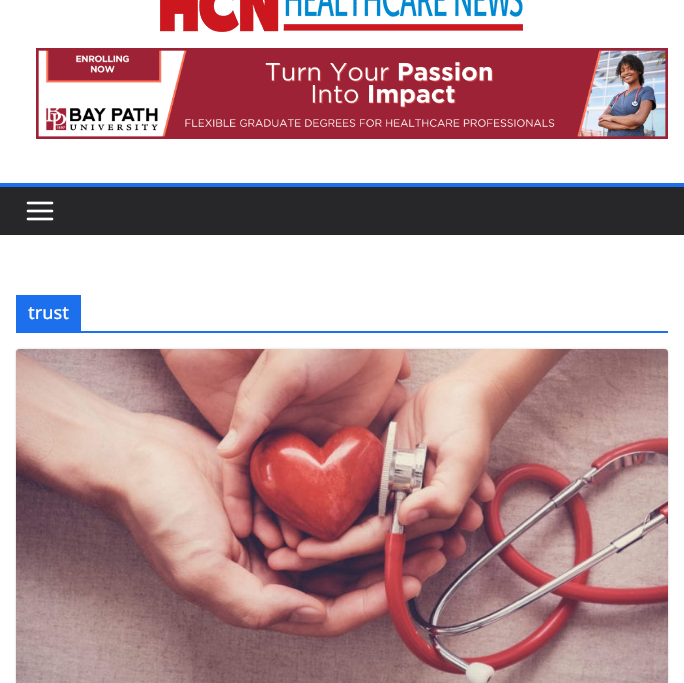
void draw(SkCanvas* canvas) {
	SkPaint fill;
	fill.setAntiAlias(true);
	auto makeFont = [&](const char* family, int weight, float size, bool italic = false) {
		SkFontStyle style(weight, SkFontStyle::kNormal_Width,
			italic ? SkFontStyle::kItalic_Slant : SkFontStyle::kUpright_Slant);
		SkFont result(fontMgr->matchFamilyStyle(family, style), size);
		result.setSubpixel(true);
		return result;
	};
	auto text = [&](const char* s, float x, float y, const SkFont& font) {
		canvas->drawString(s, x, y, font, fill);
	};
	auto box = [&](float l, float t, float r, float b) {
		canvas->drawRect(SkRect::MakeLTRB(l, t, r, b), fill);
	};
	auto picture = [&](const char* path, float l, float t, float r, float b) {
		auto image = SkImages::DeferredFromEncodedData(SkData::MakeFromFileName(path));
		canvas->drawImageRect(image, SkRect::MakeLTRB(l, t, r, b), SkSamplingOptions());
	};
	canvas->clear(0xFFFFFFFF);
	picture("image0.png", 160, 0, 523, 32);
	picture("image1.png", 36, 48, 668, 139);
	fill.setColor(0xFF27272A);
	box(0, 187, 684, 235);
	fill.setColor(0xFF1C6FED);
	box(0, 183, 684, 187);
	picture("image2.png", 26, 201, 54, 221);
	box(16, 331, 668, 333);
	box(16, 295, 81, 331);
	fill.setColor(0x3D000000);
	fill.setMaskFilter(SkMaskFilter::MakeBlur(kNormal_SkBlurStyle, 1));
	canvas->drawRoundRect(SkRect::MakeLTRB(16, 349, 668, 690), 4, 4, fill);
	fill.setMaskFilter(nullptr);
	picture("image3.png", 16, 349, 668, 683);
	auto font1 = makeFont("Open Sans", 500, 18);
	fill.setColor(0xFFFFFFFF);
	text("trust", 28, 319, font1);
}
